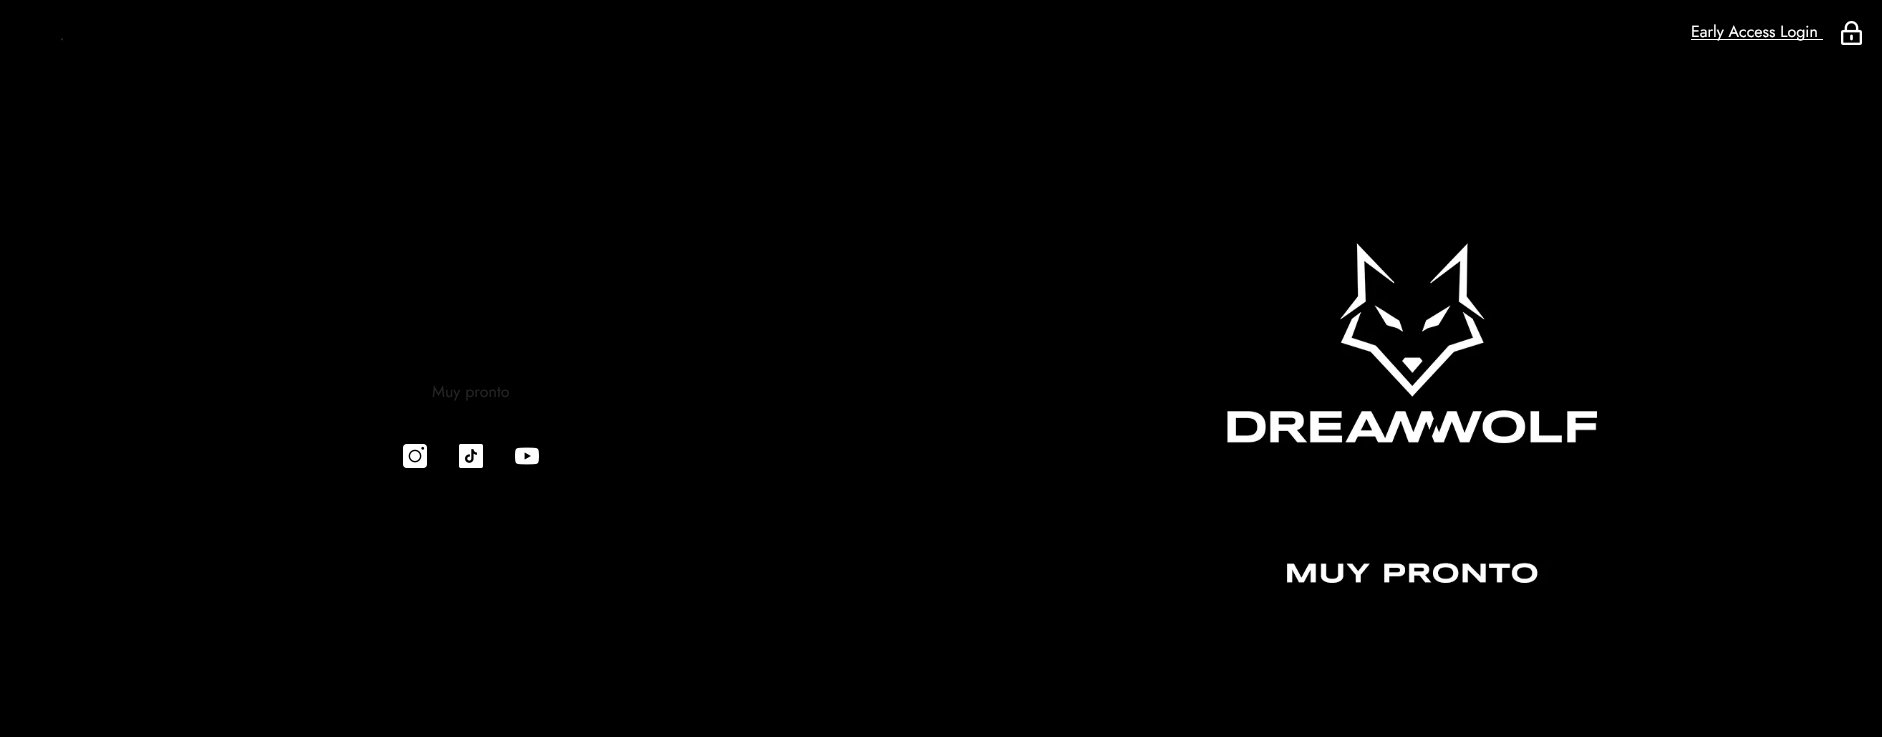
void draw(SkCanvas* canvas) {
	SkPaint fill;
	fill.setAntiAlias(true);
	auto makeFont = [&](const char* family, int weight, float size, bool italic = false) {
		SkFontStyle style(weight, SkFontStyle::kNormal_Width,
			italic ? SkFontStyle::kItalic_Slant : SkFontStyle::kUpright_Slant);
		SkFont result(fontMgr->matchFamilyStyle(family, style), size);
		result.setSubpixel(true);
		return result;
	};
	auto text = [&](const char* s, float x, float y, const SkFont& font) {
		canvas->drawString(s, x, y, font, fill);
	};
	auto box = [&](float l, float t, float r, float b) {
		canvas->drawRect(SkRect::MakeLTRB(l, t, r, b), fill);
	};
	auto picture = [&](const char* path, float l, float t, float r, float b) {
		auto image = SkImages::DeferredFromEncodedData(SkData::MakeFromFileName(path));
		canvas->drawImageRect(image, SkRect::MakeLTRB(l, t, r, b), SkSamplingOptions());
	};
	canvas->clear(0xFF000000);
	fill.setColor(0xFFFFFFFF);
	box(1691, 39, 1823, 40);
	picture("image0.png", 1841, 21, 1862, 45);
	picture("image1.png", 1227, 243, 1597, 584);
	picture("image2.png", 403, 444, 427, 468);
	picture("image3.png", 459, 444, 483, 468);
	picture("image4.png", 515, 447, 539, 465);
	auto font1 = makeFont("Jost", 400, 16);
	text("Early Access Login", 1691, 37, font1);
	auto font2 = makeFont("Jost", 700, 12);
	fill.setColor(0xFF232323);
	text(".", 60, 40, font2);
	text("Muy pronto", 432, 397, font1);
}
